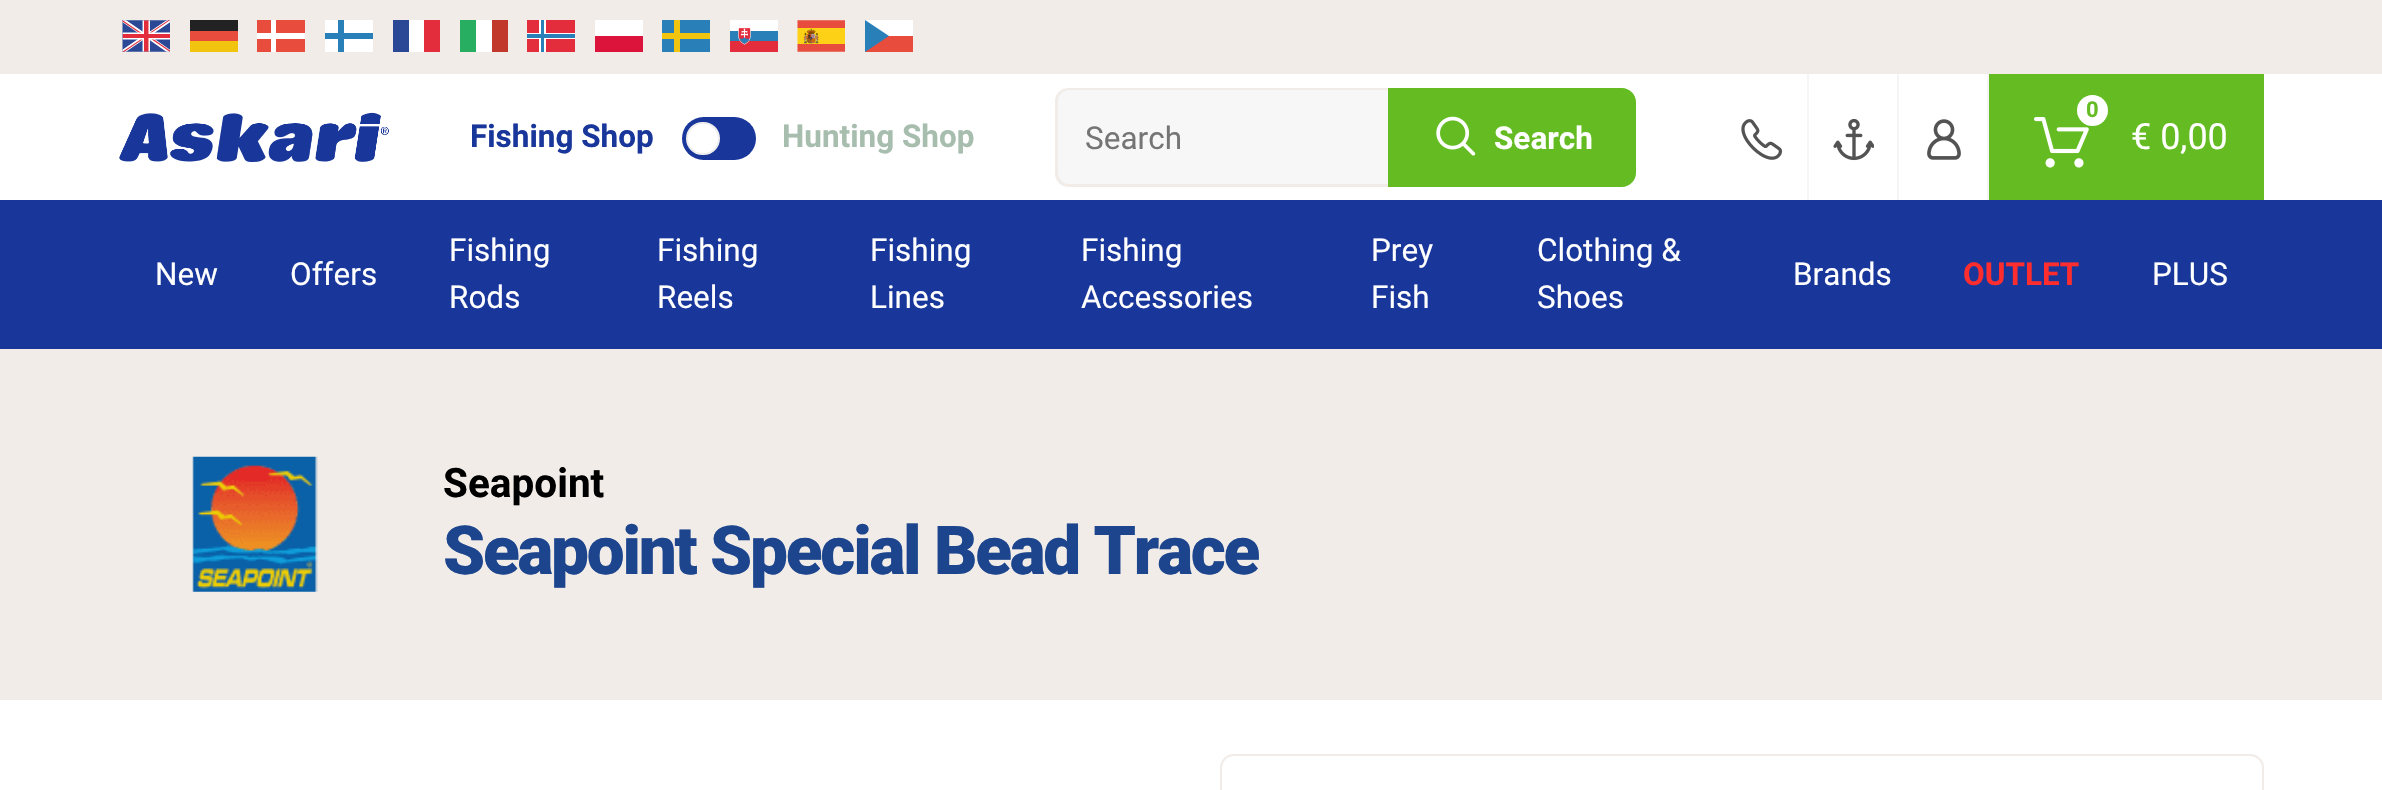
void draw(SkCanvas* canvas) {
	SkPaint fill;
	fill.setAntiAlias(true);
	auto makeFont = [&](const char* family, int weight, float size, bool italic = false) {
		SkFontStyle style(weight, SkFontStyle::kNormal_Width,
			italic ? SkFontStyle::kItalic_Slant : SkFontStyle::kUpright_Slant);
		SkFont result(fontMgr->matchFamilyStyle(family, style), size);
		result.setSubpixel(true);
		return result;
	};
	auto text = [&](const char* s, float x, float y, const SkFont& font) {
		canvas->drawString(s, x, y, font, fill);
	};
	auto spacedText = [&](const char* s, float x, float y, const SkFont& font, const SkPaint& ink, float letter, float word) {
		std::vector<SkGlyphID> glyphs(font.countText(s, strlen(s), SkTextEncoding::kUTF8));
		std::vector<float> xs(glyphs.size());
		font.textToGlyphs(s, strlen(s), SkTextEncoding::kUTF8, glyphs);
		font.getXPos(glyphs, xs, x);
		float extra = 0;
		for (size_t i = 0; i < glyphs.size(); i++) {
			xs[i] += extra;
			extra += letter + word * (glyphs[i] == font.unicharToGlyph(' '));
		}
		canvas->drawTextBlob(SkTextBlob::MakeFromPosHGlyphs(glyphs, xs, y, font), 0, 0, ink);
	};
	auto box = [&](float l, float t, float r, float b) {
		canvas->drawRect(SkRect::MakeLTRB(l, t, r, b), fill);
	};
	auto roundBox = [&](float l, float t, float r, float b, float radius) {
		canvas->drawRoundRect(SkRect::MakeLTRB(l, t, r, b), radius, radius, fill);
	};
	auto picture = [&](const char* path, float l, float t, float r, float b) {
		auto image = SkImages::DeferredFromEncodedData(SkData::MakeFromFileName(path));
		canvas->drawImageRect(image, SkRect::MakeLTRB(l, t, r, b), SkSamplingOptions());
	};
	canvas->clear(0xFFFFFFFF);
	fill.setColor(0xFF19369A);
	box(0, 200, 2382, 349);
	fill.setColor(0xFFF1ECE8);
	box(0, 0, 2382, 74);
	picture("image0.png", 122, 20, 170, 52);
	fill.setColor(0xFFF1C40F);
	box(190, 41, 238, 52);
	fill.setColor(0xFFE74C3C);
	box(190, 31, 238, 41);
	fill.setColor(0xFF222222);
	box(190, 20, 238, 31);
	fill.setColor(0xFFE74C3C);
	box(257, 20, 305, 52);
	fill.setColor(0xFFFFFFFF);
	box(257, 33, 305, 39);
	box(271, 20, 276, 52);
	box(325, 20, 373, 52);
	fill.setColor(0xFF2980B9);
	box(338, 20, 344, 52);
	box(325, 33, 373, 39);
	fill.setColor(0xFFE32D3C);
	box(424, 20, 440, 52);
	fill.setColor(0xFFFFFFFF);
	box(409, 20, 424, 52);
	fill.setColor(0xFF2B4896);
	box(393, 20, 409, 52);
	fill.setColor(0xFF27AE60);
	box(460, 20, 476, 52);
	fill.setColor(0xFFFFFFFF);
	box(476, 20, 492, 52);
	fill.setColor(0xFFC0392B);
	box(492, 20, 508, 52);
	fill.setColor(0xFFE32D3C);
	box(527, 20, 575, 52);
	fill.setColor(0xFFFFFFFF);
	box(527, 33, 575, 39);
	box(539, 20, 546, 52);
	fill.setColor(0xFF2980B9);
	box(541, 20, 544, 52);
	box(527, 34, 575, 38);
	fill.setColor(0xFFFFFFFF);
	box(595, 20, 643, 36);
	fill.setColor(0xFFDC143C);
	box(595, 36, 643, 52);
	fill.setColor(0xFF2980B9);
	box(662, 20, 710, 52);
	fill.setColor(0xFFF1C40F);
	box(662, 33, 710, 39);
	box(674, 20, 680, 52);
	picture("image1.png", 730, 20, 778, 52);
	picture("image2.png", 797, 20, 845, 52);
	fill.setColor(0xFFFFFFFF);
	box(865, 20, 913, 36);
	fill.setColor(0xFFE74C3C);
	box(865, 36, 913, 52);
	fill.setColor(0xFF2980B9);
	canvas->drawPath(SkPathBuilder().moveTo(865, 52).lineTo(889, 36).lineTo(865, 20).close().detach(), fill);
	picture("image3.png", 119, 112, 390, 162);
	fill.setColor(0xFF19369A);
	roundBox(682, 117, 756, 160, 21.5f);
	fill.setColor(0xFFFFFFFF);
	canvas->drawRoundRect(SkRect::MakeLTRB(687, 123, 719, 154), 15.5f, 15.5f, fill);
	fill.setStyle(SkPaint::kStroke_Style);
	fill.setStrokeWidth(2);
	fill.setColor(0xFFEEEEEE);
	canvas->drawRoundRect(SkRect::MakeLTRB(687, 123, 719, 154), 15.5f, 15.5f, fill);
	fill.setStyle(SkPaint::kFill_Style);
	fill.setColor(0xFFF7F7F7);
	canvas->drawPath(SkPathBuilder().moveTo(1069, 90).lineTo(1388, 90).lineTo(1388, 185).lineTo(1069, 185).cubicTo(1063, 185, 1058, 180, 1058, 174).lineTo(1058, 101).cubicTo(1058, 95, 1063, 90, 1069, 90).close().detach(), fill);
	fill.setColor(0xFFF1ECE8);
	canvas->drawPath(SkPathBuilder(SkPathFillType::kEvenOdd).moveTo(1069, 88).lineTo(1388, 88).lineTo(1388, 187).lineTo(1069, 187).cubicTo(1061, 187, 1055, 181, 1055, 173).lineTo(1055, 101).cubicTo(1055, 94, 1061, 88, 1069, 88).close().moveTo(1069, 90).lineTo(1388, 90).lineTo(1388, 184).lineTo(1069, 184).cubicTo(1063, 184, 1058, 179, 1058, 173).lineTo(1058, 101).cubicTo(1058, 95, 1063, 90, 1069, 90).close().detach(), fill);
	fill.setColor(0xFF64BC22);
	canvas->drawPath(SkPathBuilder().moveTo(1388, 88).lineTo(1622, 88).cubicTo(1629.5f, 88, 1636, 94.5f, 1636, 102).lineTo(1636, 173).cubicTo(1636, 180.5f, 1629.5f, 187, 1622, 187).lineTo(1388, 187).close().detach(), fill);
	picture("image4.png", 1436, 116, 1476, 156);
	picture("image5.png", 1741, 119, 1783, 160);
	fill.setColor(0xFFF5F5F5);
	box(1807, 74, 1809, 200);
	picture("image6.png", 1833, 118, 1874, 161);
	box(1897, 74, 1899, 200);
	picture("image7.png", 1927, 119, 1961, 160);
	fill.setColor(0xFF64BC22);
	box(1989, 74, 2264, 200);
	fill.setColor(0xFFF5F5F5);
	box(1987, 74, 1989, 200);
	picture("image8.png", 2034, 117, 2089, 168);
	fill.setColor(0xFFFFFFFF);
	canvas->drawCircle(2092.5f, 110.5f, 15.5f, fill);
	fill.setColor(0xFFF1ECE8);
	box(0, 349, 2382, 700);
	picture("image9.png", 192, 456, 318, 592);
	fill.setStyle(SkPaint::kStroke_Style);
	canvas->drawRoundRect(SkRect::MakeLTRB(1221, 755, 2263, 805), 13, 13, fill);
	auto font1 = makeFont("Roboto", 700, 31.5f);
	fill.setStyle(SkPaint::kFill_Style);
	fill.setColor(0xFF19369A);
	text("Fishing Shop", 470, 147, font1);
	fill.setColor(0xFFA7BDAE);
	text("Hunting Shop", 782, 147, font1);
	auto font2 = makeFont("Roboto", 400, 31.5f);
	fill.setColor(0xFF757575);
	text("Search", 1085, 149, font2);
	fill.setColor(0xFFFFFFFF);
	text("Search", 1494, 149, font1);
	auto font3 = makeFont("Roboto", 700, 22);
	fill.setColor(0xFF64BC22);
	text("0", 2086, 117, font3);
	auto font4 = makeFont("Roboto", 400, 36);
	fill.setColor(0xFFFFFFFF);
	text("€ 0,00", 2131, 149, font4);
	text("New", 155, 285, font2);
	text("Offers", 290, 285, font2);
	text("Fishing", 449, 261, font2);
	text("Rods", 449, 308, font2);
	text("Fishing", 657, 261, font2);
	text("Reels", 657, 308, font2);
	text("Fishing", 870, 261, font2);
	text("Lines", 870, 308, font2);
	text("Fishing", 1081, 261, font2);
	text("Accessories", 1081, 308, font2);
	text("Prey", 1371, 261, font2);
	text("Fish", 1371, 308, font2);
	text("Clothing &", 1537, 261, font2);
	text("Shoes", 1537, 308, font2);
	text("Brands", 1793, 285, font2);
	fill.setColor(0xFFFF2D2D);
	text("OUTLET", 1963, 285, font1);
	fill.setColor(0xFFFFFFFF);
	text("PLUS", 2152, 285, font2);
	auto font5 = makeFont("Roboto", 700, 40.5f);
	fill.setColor(0xFF000000);
	text("Seapoint", 443, 497, font5);
	auto font6 = makeFont("Roboto", 900, 67.5f);
	fill.setColor(0xFF1C458D);
	spacedText("Seapoint Special Bead Trace", 443, 574, font6, fill, -2.25f, 0);
}
